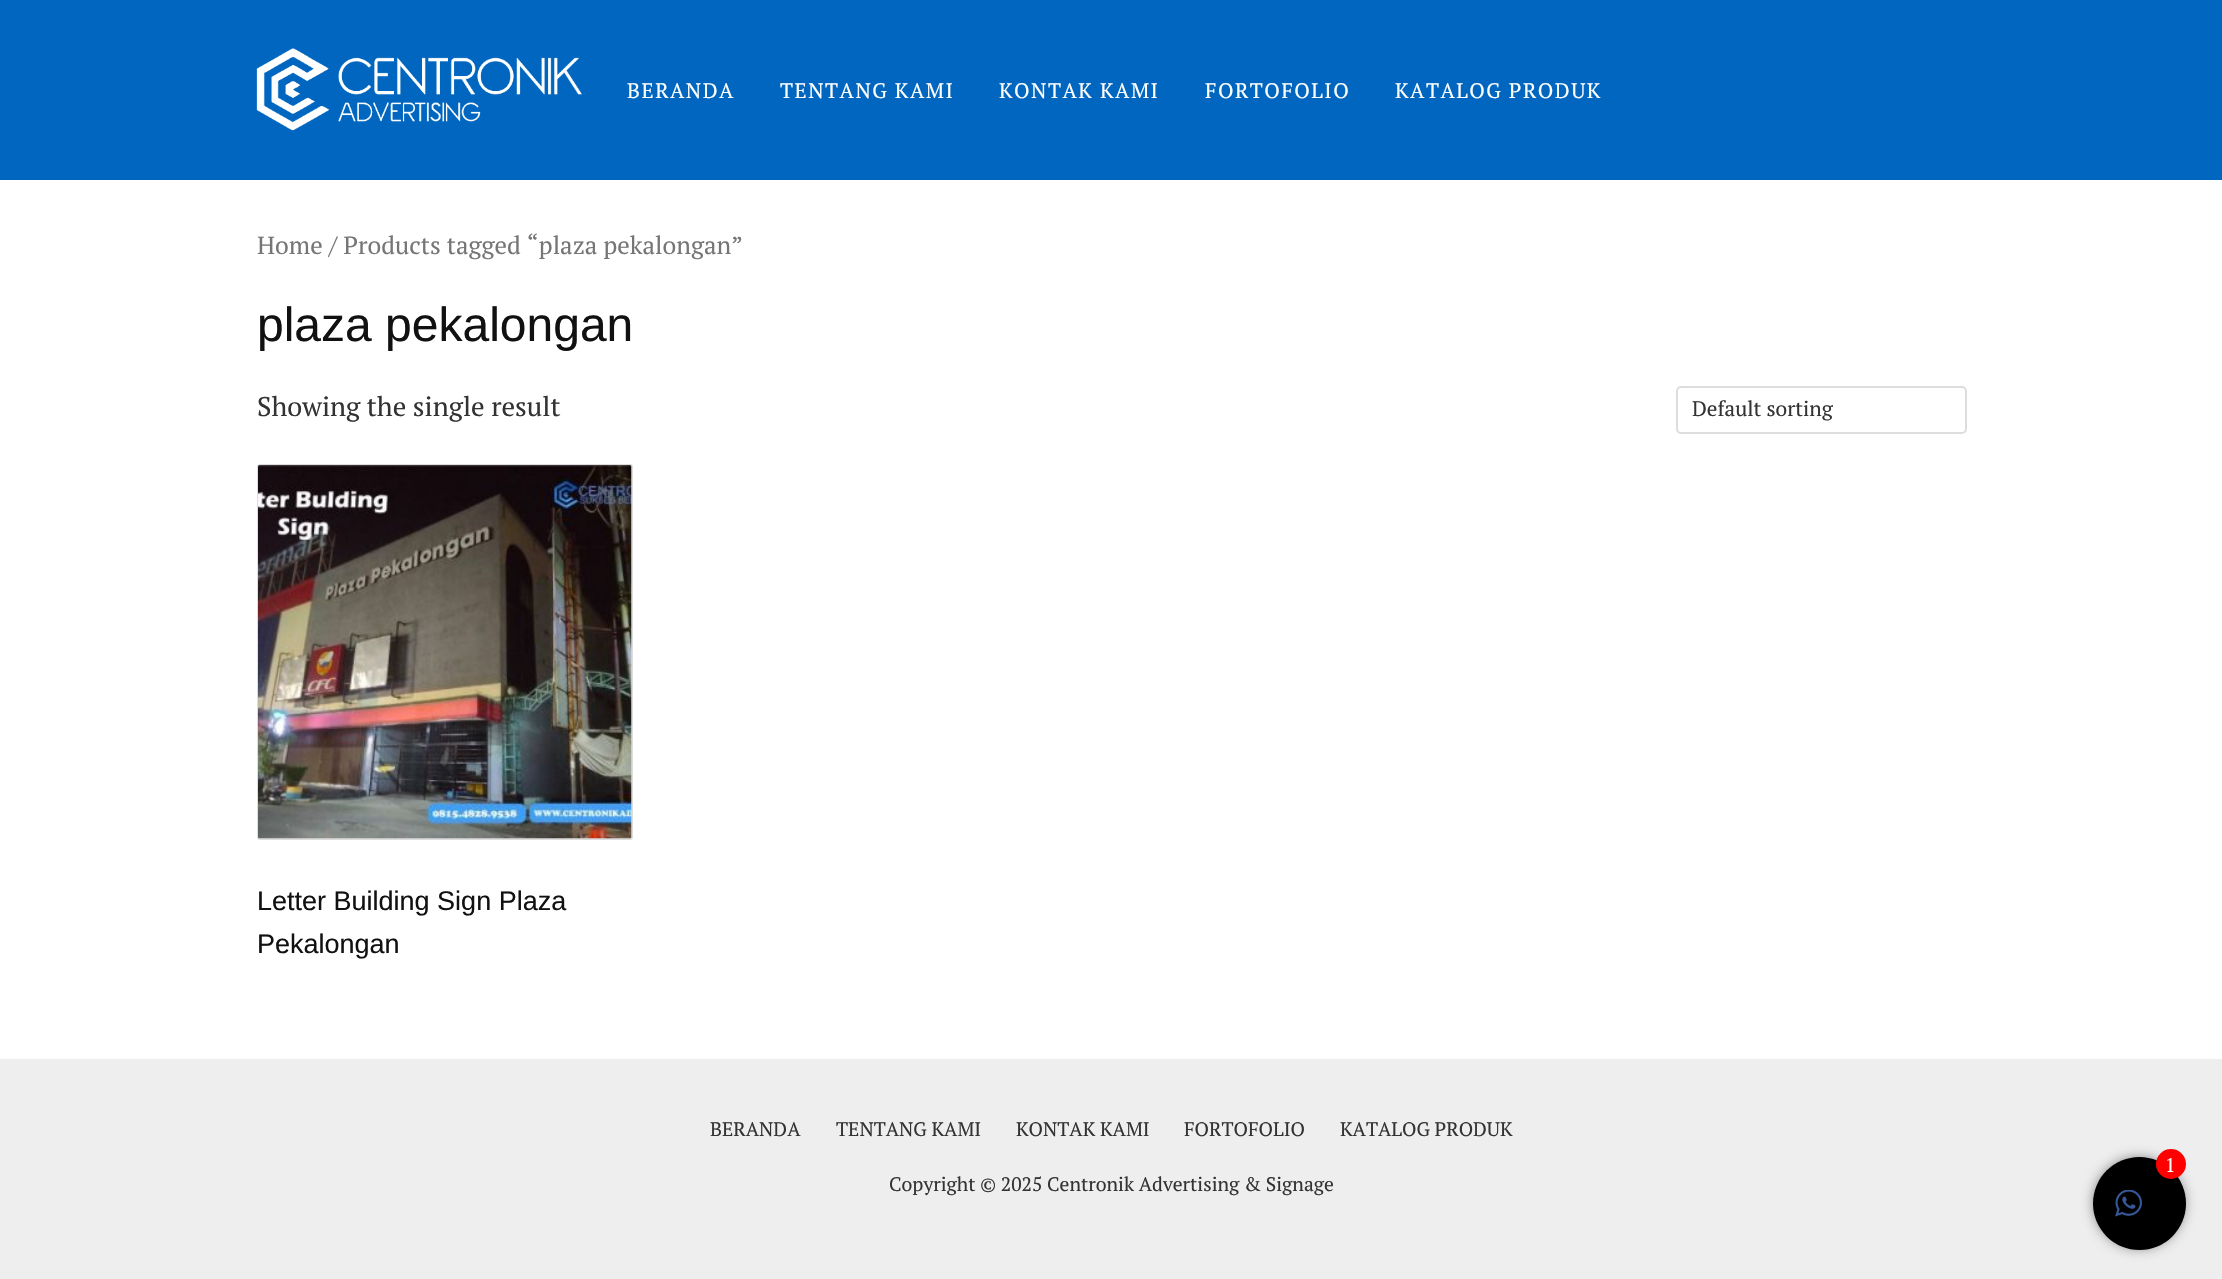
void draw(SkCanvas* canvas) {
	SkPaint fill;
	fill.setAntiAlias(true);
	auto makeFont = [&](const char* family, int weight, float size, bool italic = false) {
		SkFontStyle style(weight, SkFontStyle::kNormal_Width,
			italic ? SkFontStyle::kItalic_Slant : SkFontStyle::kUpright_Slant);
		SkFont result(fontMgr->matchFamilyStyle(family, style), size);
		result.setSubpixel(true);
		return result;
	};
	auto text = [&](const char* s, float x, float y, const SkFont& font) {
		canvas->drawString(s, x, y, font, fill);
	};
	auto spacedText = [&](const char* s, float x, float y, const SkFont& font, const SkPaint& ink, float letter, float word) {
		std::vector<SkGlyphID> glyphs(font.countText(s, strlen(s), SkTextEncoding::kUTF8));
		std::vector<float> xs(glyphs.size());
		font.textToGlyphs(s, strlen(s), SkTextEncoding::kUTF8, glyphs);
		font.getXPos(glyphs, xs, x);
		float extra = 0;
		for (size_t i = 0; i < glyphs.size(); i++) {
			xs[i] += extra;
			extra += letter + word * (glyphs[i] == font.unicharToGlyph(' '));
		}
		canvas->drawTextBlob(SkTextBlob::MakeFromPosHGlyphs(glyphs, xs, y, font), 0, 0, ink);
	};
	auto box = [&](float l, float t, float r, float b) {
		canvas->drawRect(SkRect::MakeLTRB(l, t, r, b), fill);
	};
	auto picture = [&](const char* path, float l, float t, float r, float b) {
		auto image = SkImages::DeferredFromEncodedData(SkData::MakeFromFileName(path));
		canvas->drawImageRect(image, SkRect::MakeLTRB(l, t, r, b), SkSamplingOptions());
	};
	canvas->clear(0xFFEEEEEE);
	fill.setColor(0xFF0066BF);
	box(0, 0, 2222, 180);
	picture("image0.png", 256, 48, 582, 131);
	fill.setColor(0xFFFFFFFF);
	box(0, 180, 2222, 1059);
	fill.setStyle(SkPaint::kStroke_Style);
	fill.setStrokeWidth(2);
	fill.setColor(0xFFDDDDDD);
	canvas->drawRoundRect(SkRect::MakeLTRB(1677, 387, 1966, 433), 4, 4, fill);
	canvas->drawRoundRect(SkRect::MakeLTRB(258, 465, 632, 839), 2, 2, fill);
	picture("image1.png", 258, 465, 632, 839);
	fill.setStyle(SkPaint::kFill_Style);
	fill.setColor(0xFF333333);
	fill.setMaskFilter(SkMaskFilter::MakeBlur(kNormal_SkBlurStyle, 7.5f));
	canvas->drawRoundRect(SkRect::MakeLTRB(2097, 1161, 2181, 1245), 42, 42, fill);
	fill.setMaskFilter(nullptr);
	fill.setColor(0xFF000000);
	canvas->drawCircle(2139.5f, 1203.5f, 46.5f, fill);
	fill.setColor(0xFFFF0000);
	canvas->drawCircle(2171, 1164, 15, fill);
	picture("image2.png", 2115, 1190, 2142, 1217);
	auto font1 = makeFont("PT Serif", 400, 21);
	fill.setColor(0xFFFFFFFF);
	spacedText("BERANDA", 627, 98, font1, fill, 1.5f, 0);
	spacedText("TENTANG KAMI", 780, 98, font1, fill, 1.5f, 0);
	spacedText("KONTAK KAMI", 999, 98, font1, fill, 1.5f, 0);
	spacedText("FORTOFOLIO", 1205, 98, font1, fill, 1.5f, 0);
	spacedText("KATALOG PRODUK", 1395, 98, font1, fill, 1.5f, 0);
	auto font2 = makeFont("PT Serif", 400, 24.8f);
	fill.setColor(0xFF767676);
	text("Home / Products tagged “plaza pekalongan”", 257, 254, font2);
	auto font3 = makeFont("Liberation Sans", 400, 48);
	fill.setColor(0xFF111111);
	text("plaza pekalongan", 257, 341, font3);
	auto font4 = makeFont("PT Serif", 400, 27);
	fill.setColor(0xFF333333);
	text("Showing the single result", 257, 416, font4);
	text("Default sorting", 1692, 416, font1);
	auto font5 = makeFont("Liberation Sans", 400, 27);
	fill.setColor(0xFF111111);
	text("Letter Building Sign Plaza", 257, 910, font5);
	text("Pekalongan", 257, 953, font5);
	auto font6 = makeFont("PT Serif", 400, 19.5f);
	fill.setColor(0xFF333333);
	text("BERANDA", 710, 1136, font6);
	text("TENTANG KAMI", 836, 1136, font6);
	text("KONTAK KAMI", 1016, 1136, font6);
	text("FORTOFOLIO", 1184, 1136, font6);
	text("KATALOG PRODUK", 1340, 1136, font6);
	text("Copyright © 2025 Centronik Advertising & Signage", 889, 1191, font6);
	fill.setColor(0xFFFFFFFF);
	text("1", 2165, 1172, font6);
}
